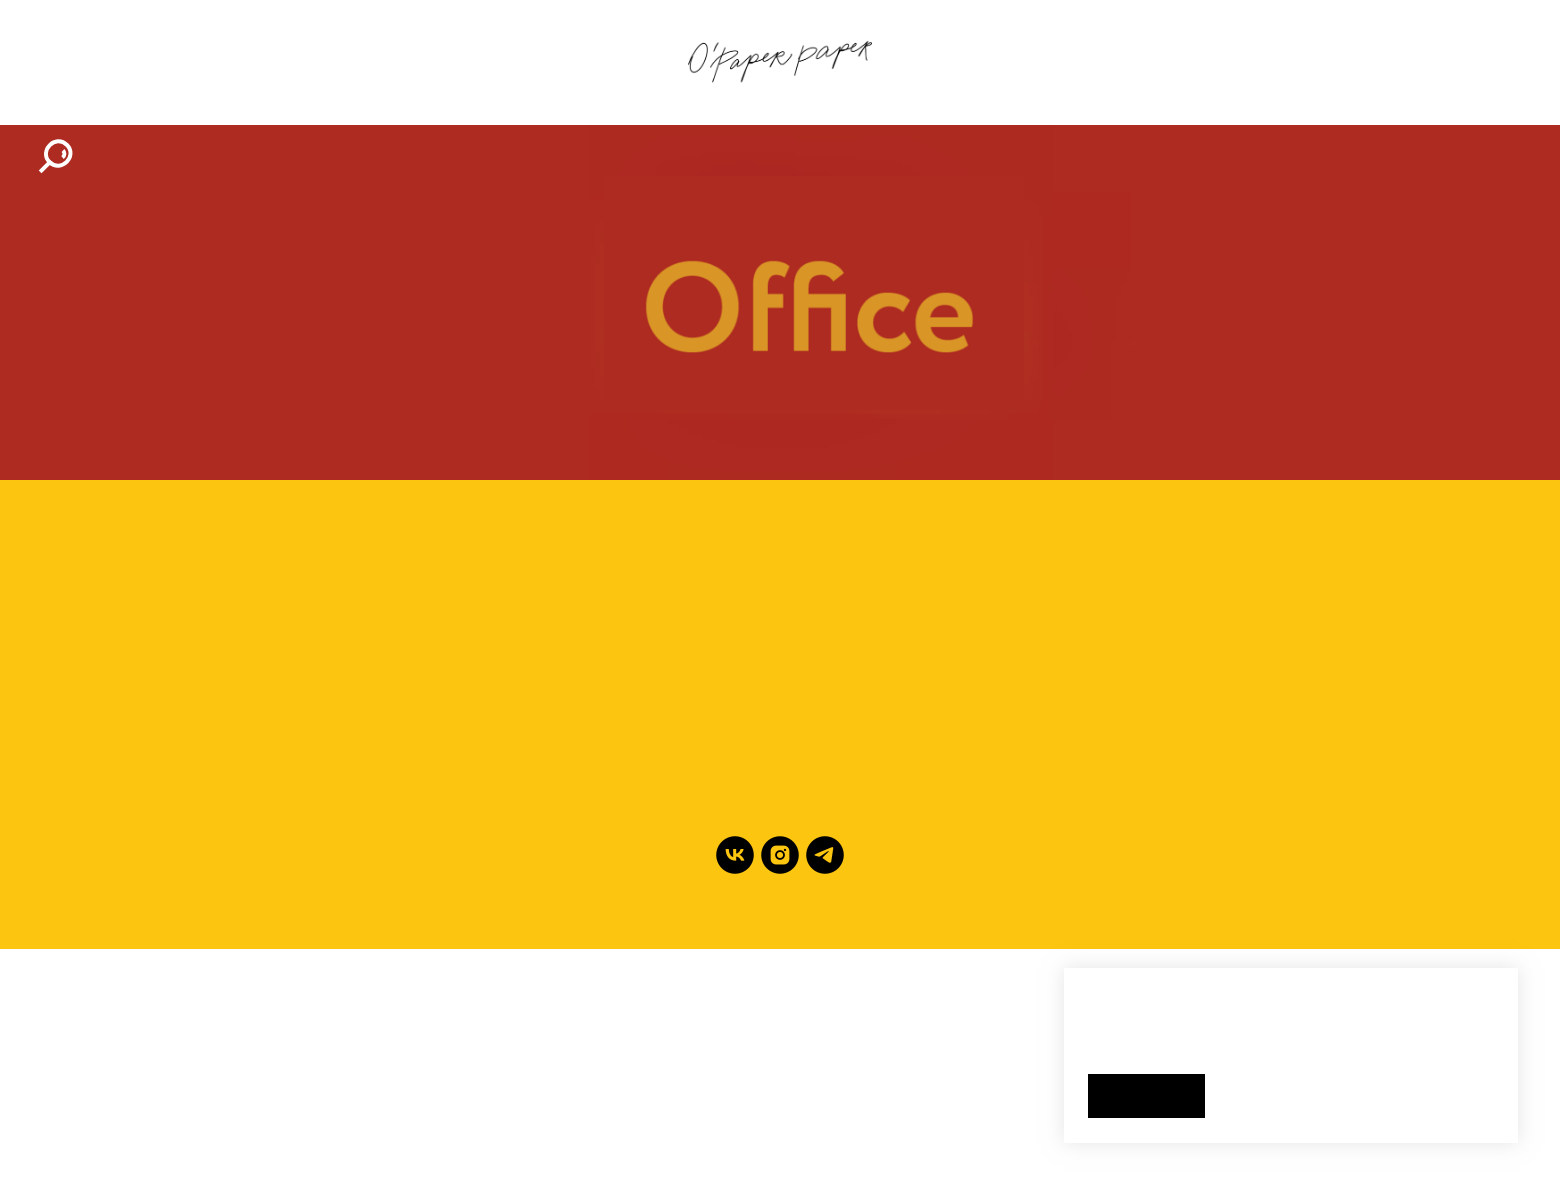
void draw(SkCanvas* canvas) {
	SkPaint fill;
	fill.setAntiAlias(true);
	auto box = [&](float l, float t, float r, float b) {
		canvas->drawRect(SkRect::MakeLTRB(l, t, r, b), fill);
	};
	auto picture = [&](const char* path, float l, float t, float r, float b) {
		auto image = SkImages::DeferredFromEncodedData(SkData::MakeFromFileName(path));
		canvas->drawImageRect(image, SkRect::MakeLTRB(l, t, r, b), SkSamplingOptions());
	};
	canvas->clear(0xFFFFFFFF);
	picture("image0.png", 688, 40, 872, 83);
	picture("image1.png", 0, 125, 1560, 480);
	fill.setStyle(SkPaint::kStroke_Style);
	fill.setStrokeWidth(3.9f);
	fill.setStrokeCap(SkPaint::kSquare_Cap);
	fill.setColor(0xFFFFFFFF);
	canvas->drawPath(SkPathBuilder().moveTo(49.5f, 162.5f).lineTo(41.5f, 170.5f).detach(), fill);
	fill.setStrokeCap(SkPaint::kButt_Cap);
	canvas->drawPath(SkPathBuilder().moveTo(67, 145).cubicTo(78, 156, 61, 173.5f, 49.5f, 162).cubicTo(38.5f, 151, 55.5f, 133.5f, 67, 145).close().moveTo(63, 150.5f).cubicTo(65, 152.5f, 65, 155.5f, 62.5f, 157.5f).detach(), fill);
	picture("image2.png", 604, 176, 1024, 410);
	fill.setStyle(SkPaint::kFill_Style);
	fill.setColor(0xFFFCC50F);
	box(0, 480, 1560, 949);
	picture("image3.png", 716, 836, 754, 874);
	picture("image4.png", 761, 836, 799, 874);
	picture("image5.png", 806, 836, 844, 874);
	fill.setColor(0x1A000000);
	fill.setMaskFilter(SkMaskFilter::MakeBlur(kNormal_SkBlurStyle, 9.5f));
	canvas->drawRect(SkRect::MakeLTRB(1064, 968, 1518, 1143), fill);
	fill.setMaskFilter(nullptr);
	fill.setColor(0xFFFFFFFF);
	box(1064, 968, 1518, 1143);
	fill.setColor(0xFF000000);
	box(1088, 1074, 1205, 1118);
}
